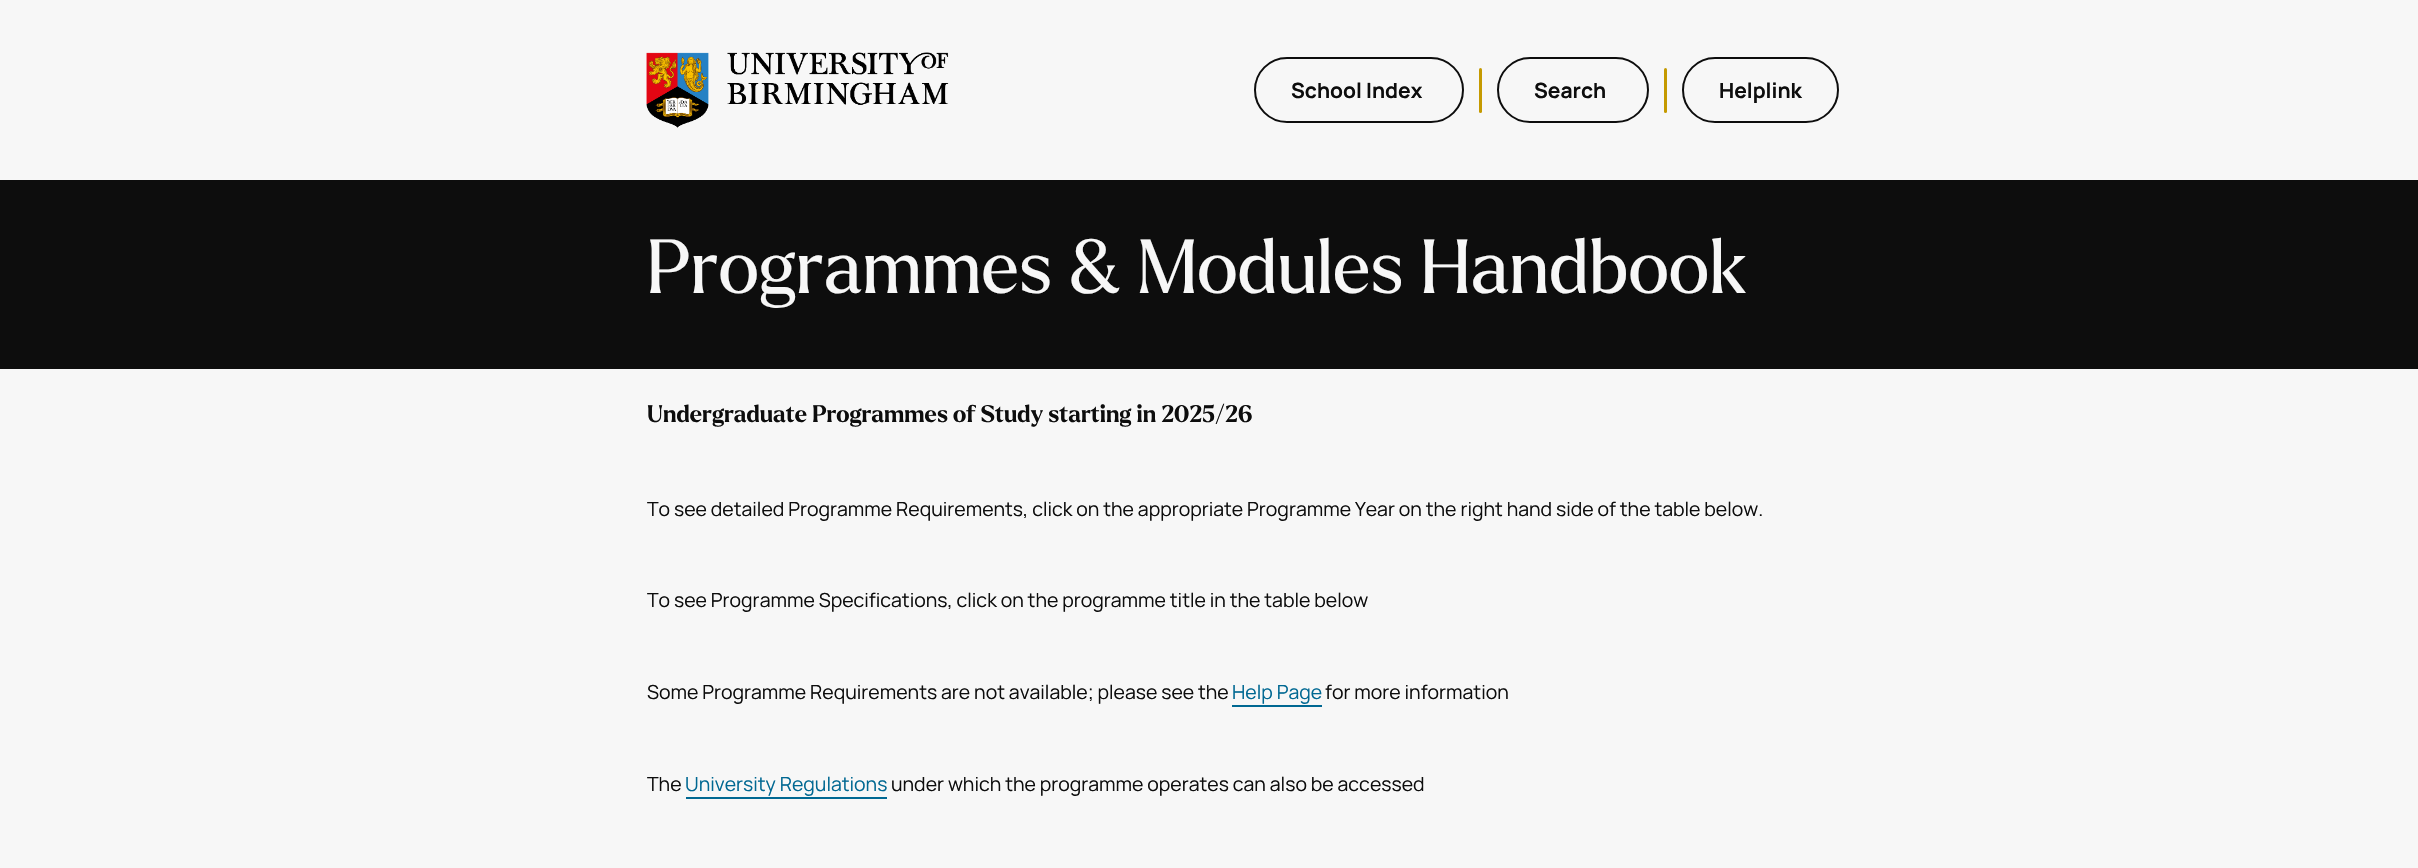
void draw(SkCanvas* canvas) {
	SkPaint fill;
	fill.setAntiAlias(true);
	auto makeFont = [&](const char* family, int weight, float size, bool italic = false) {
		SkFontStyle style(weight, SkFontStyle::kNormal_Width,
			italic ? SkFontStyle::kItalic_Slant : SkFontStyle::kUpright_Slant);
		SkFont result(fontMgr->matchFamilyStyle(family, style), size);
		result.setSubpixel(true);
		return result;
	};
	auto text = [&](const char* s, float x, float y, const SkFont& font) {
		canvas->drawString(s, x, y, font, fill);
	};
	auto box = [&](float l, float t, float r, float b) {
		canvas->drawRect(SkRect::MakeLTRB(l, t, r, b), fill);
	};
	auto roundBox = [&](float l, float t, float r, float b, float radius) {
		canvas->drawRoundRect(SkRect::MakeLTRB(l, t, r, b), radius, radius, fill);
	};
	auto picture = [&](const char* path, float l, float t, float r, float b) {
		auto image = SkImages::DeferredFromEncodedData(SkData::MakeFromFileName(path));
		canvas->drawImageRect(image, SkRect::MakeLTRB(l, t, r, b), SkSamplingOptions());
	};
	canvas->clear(0xFFF7F7F7);
	picture("image0.png", 646, 52, 949, 128);
	fill.setStyle(SkPaint::kStroke_Style);
	fill.setStrokeWidth(2);
	fill.setColor(0xFF0D0D0D);
	canvas->drawRoundRect(SkRect::MakeLTRB(1255, 58, 1463, 122), 32, 32, fill);
	fill.setStyle(SkPaint::kFill_Style);
	fill.setColor(0xFFC59A00);
	roundBox(1479, 68, 1482, 113, 1.5f);
	fill.setStyle(SkPaint::kStroke_Style);
	fill.setColor(0xFF0D0D0D);
	canvas->drawRoundRect(SkRect::MakeLTRB(1498, 58, 1648, 122), 32, 32, fill);
	fill.setStyle(SkPaint::kFill_Style);
	fill.setColor(0xFFC59A00);
	roundBox(1664, 68, 1667, 113, 1.5f);
	fill.setStyle(SkPaint::kStroke_Style);
	fill.setColor(0xFF0D0D0D);
	canvas->drawRoundRect(SkRect::MakeLTRB(1683, 58, 1838, 122), 32, 32, fill);
	fill.setStyle(SkPaint::kFill_Style);
	box(0, 180, 2418, 369);
	fill.setColor(0xFF006892);
	box(1232, 705, 1322, 707);
	box(686, 797, 887, 799);
	auto font1 = makeFont("Manrope", 700, 21);
	fill.setColor(0xFF0D0D0D);
	text("School Index", 1291, 98, font1);
	text("Search", 1534, 98, font1);
	text("Helplink", 1719, 98, font1);
	auto font2 = makeFont("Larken", 400, 74.4f);
	fill.setColor(0xFFF7F7F7);
	text("Programmes & Modules Handbook", 647, 293, font2);
	auto font3 = makeFont("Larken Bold", 700, 23.3f);
	fill.setColor(0xFF0D0D0D);
	text("Undergraduate Programmes of Study starting in 2025/26", 647, 422, font3);
	auto font4 = makeFont("Manrope", 400, 19.45f);
	text("To see detailed Programme Requirements, click on the appropriate Programme Year on the right hand side of the table below.", 647, 516, font4);
	text("To see Programme Specifications, click on the programme title in the table below", 647, 607, font4);
	text("Some Programme Requirements are not available; please see the", 647, 699, font4);
	fill.setColor(0xFF006892);
	text("Help Page", 1232, 699, font4);
	fill.setColor(0xFF0D0D0D);
	text("for more information", 1325, 699, font4);
	text("The", 647, 791, font4);
	fill.setColor(0xFF006892);
	text("University Regulations", 685, 791, font4);
	fill.setColor(0xFF0D0D0D);
	text("under which the programme operates can also be accessed", 891, 791, font4);
}
